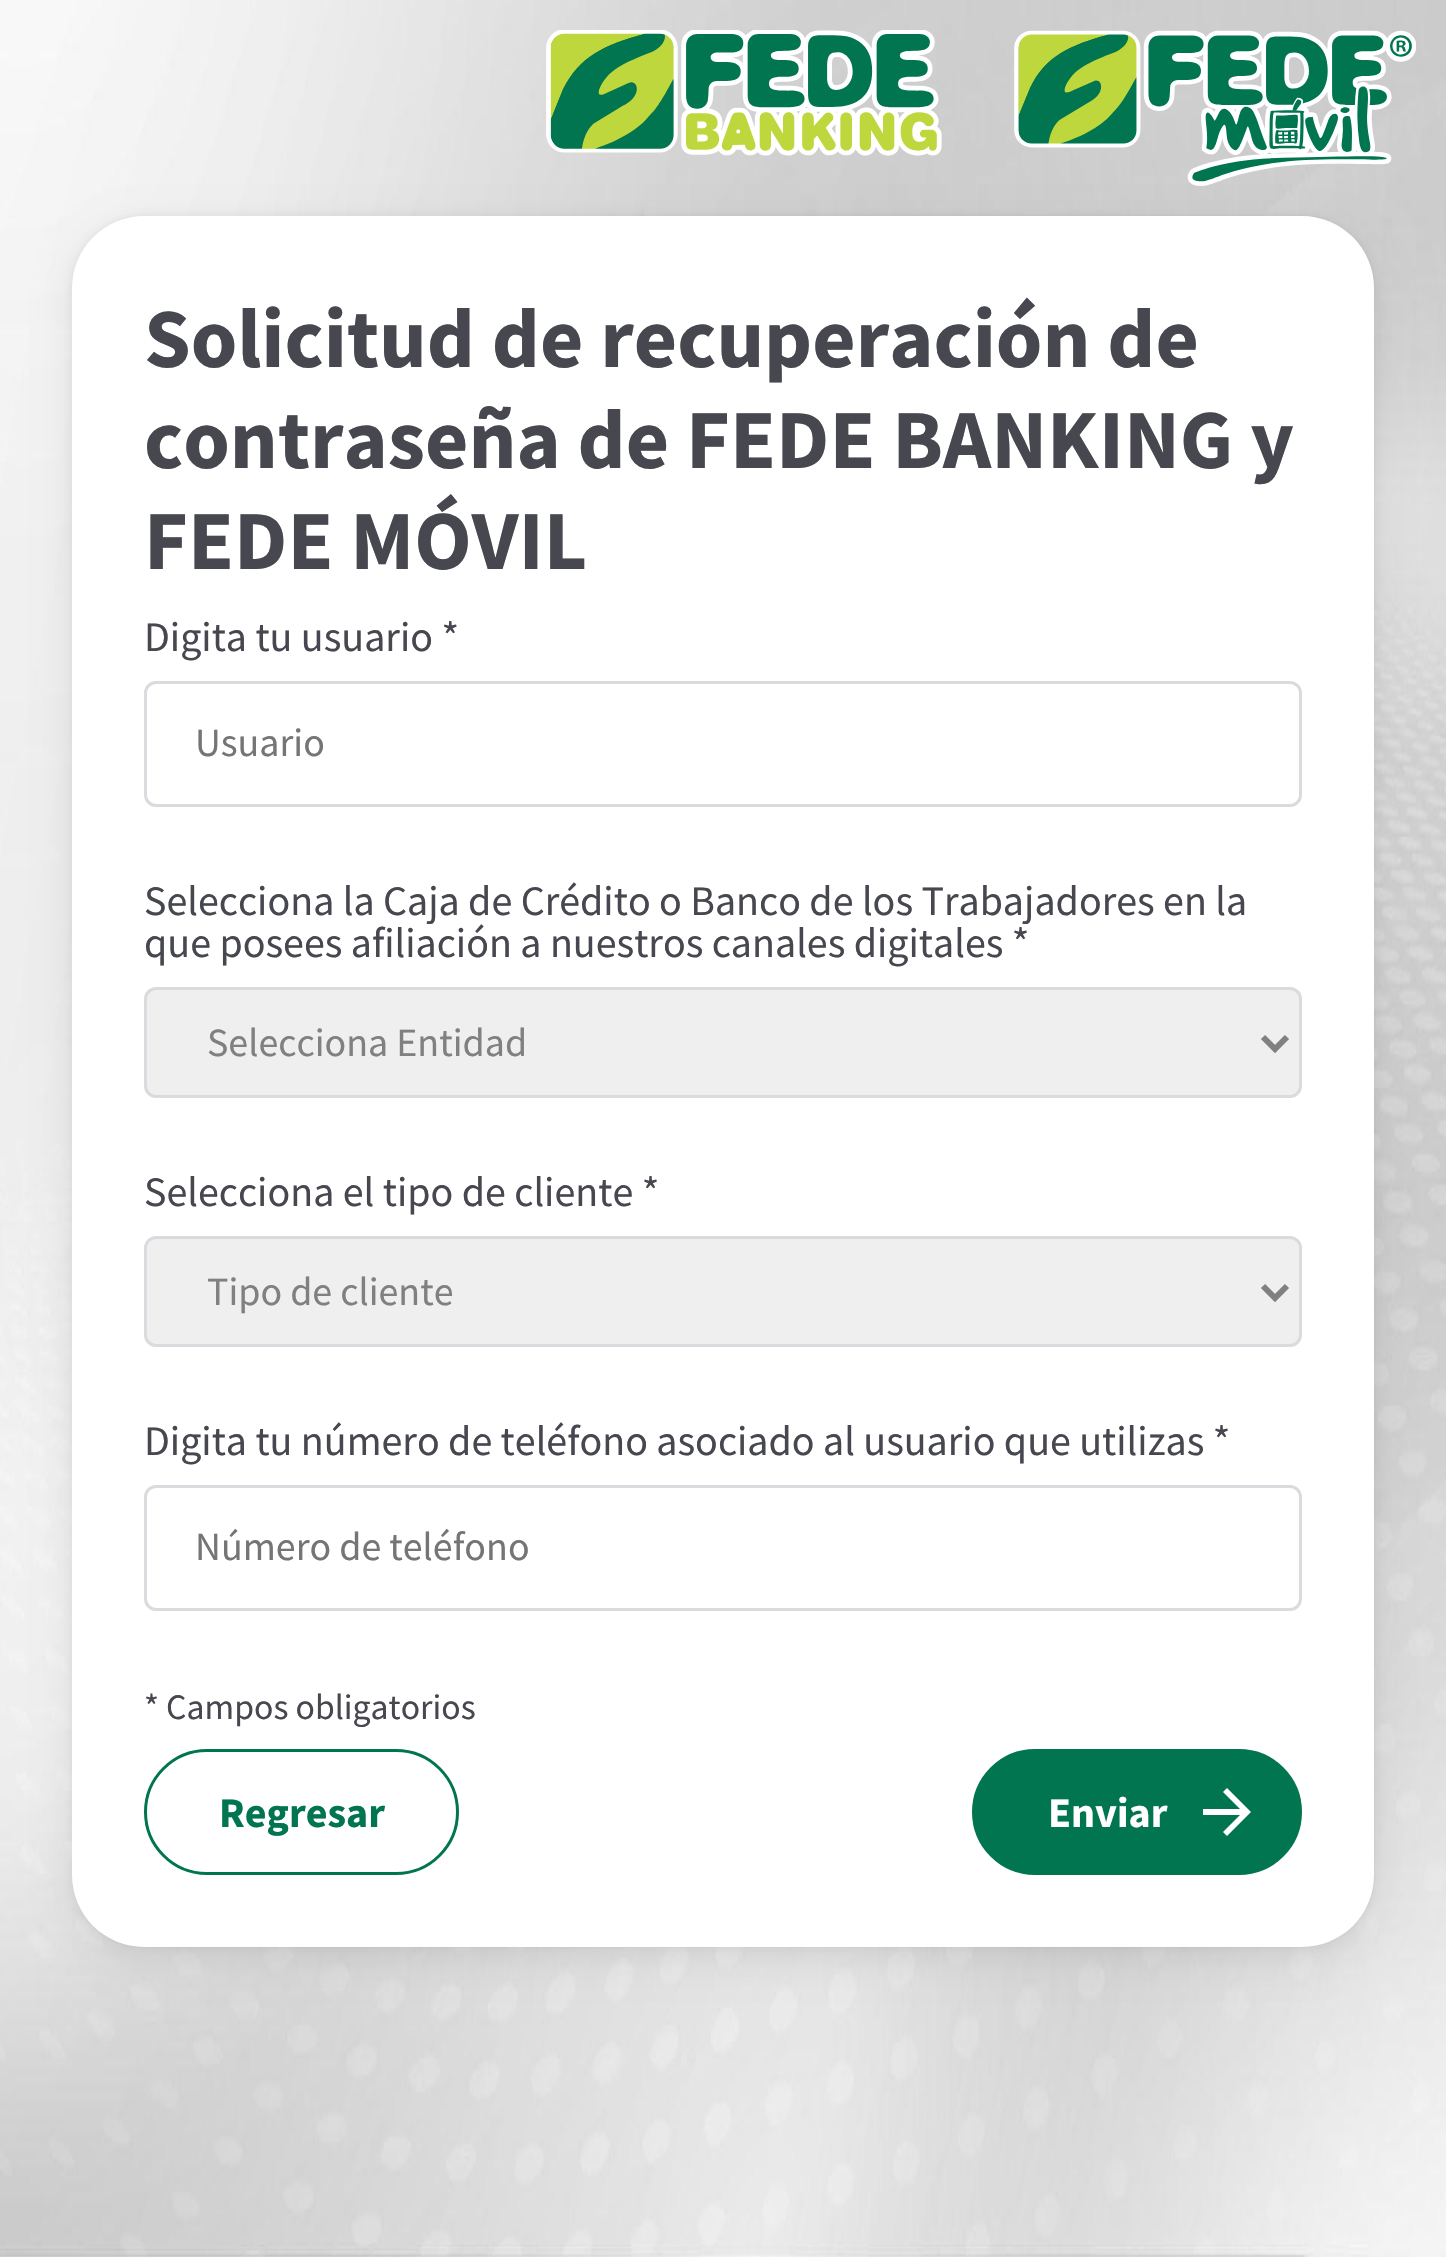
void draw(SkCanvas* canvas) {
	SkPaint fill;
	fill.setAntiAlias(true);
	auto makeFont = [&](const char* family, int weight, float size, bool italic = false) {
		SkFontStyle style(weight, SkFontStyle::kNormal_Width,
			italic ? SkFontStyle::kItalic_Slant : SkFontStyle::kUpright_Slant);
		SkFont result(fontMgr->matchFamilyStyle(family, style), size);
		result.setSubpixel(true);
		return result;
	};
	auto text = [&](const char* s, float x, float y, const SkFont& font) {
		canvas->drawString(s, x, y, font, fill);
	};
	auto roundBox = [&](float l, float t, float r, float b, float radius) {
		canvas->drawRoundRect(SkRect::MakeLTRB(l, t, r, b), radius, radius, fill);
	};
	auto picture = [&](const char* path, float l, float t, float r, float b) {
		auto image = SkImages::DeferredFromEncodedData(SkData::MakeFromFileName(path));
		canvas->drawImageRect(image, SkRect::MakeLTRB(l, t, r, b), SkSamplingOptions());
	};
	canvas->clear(0xFFFFFFFF);
	picture("image0.png", 0, 0, 1446, 2257);
	picture("image1.png", 546, 30, 942, 156);
	fill.setColor(0x14000000);
	fill.setMaskFilter(SkMaskFilter::MakeBlur(kNormal_SkBlurStyle, 18));
	canvas->drawRoundRect(SkRect::MakeLTRB(72, 228, 1374, 1959), 72, 72, fill);
	fill.setMaskFilter(nullptr);
	picture("image2.png", 1014, 30, 1416, 186);
	fill.setColor(0x0F000000);
	fill.setMaskFilter(SkMaskFilter::MakeBlur(kNormal_SkBlurStyle, 3));
	canvas->drawRoundRect(SkRect::MakeLTRB(72, 216, 1374, 1947), 72, 72, fill);
	fill.setMaskFilter(nullptr);
	fill.setColor(0xFFFFFFFF);
	roundBox(72, 216, 1374, 1947, 72);
	fill.setStyle(SkPaint::kStroke_Style);
	fill.setStrokeWidth(3);
	fill.setColor(0xFFDBDBDF);
	canvas->drawRoundRect(SkRect::MakeLTRB(145.5f, 682.5f, 1300.5f, 805.5f), 10.5f, 10.5f, fill);
	fill.setStyle(SkPaint::kFill_Style);
	fill.setColor(0xFFEFEFEF);
	canvas->drawRoundRect(SkRect::MakeLTRB(145.5f, 988.5f, 1300.5f, 1096.5f), 10.5f, 10.5f, fill);
	fill.setStyle(SkPaint::kStroke_Style);
	fill.setColor(0xFFDBDBDF);
	canvas->drawRoundRect(SkRect::MakeLTRB(145.5f, 988.5f, 1300.5f, 1096.5f), 10.5f, 10.5f, fill);
	fill.setStrokeWidth(6);
	fill.setColor(0xFF808080);
	canvas->drawPath(SkPathBuilder().moveTo(1263, 1037).lineTo(1275, 1049).lineTo(1287, 1037).detach(), fill);
	fill.setStyle(SkPaint::kFill_Style);
	fill.setColor(0xFFEFEFEF);
	canvas->drawRoundRect(SkRect::MakeLTRB(145.5f, 1237.5f, 1300.5f, 1345.5f), 10.5f, 10.5f, fill);
	fill.setStyle(SkPaint::kStroke_Style);
	fill.setStrokeWidth(3);
	fill.setColor(0xFFDBDBDF);
	canvas->drawRoundRect(SkRect::MakeLTRB(145.5f, 1237.5f, 1300.5f, 1345.5f), 10.5f, 10.5f, fill);
	fill.setStrokeWidth(6);
	fill.setColor(0xFF808080);
	canvas->drawPath(SkPathBuilder().moveTo(1263, 1286).lineTo(1275, 1298).lineTo(1287, 1286).detach(), fill);
	fill.setStrokeWidth(3);
	fill.setColor(0xFFDBDBDF);
	canvas->drawRoundRect(SkRect::MakeLTRB(145.5f, 1486.5f, 1300.5f, 1609.5f), 10.5f, 10.5f, fill);
	fill.setColor(0xFF007550);
	canvas->drawRoundRect(SkRect::MakeLTRB(145.5f, 1750.5f, 457.5f, 1873.5f), 61.5f, 61.5f, fill);
	fill.setStyle(SkPaint::kFill_Style);
	canvas->drawRoundRect(SkRect::MakeLTRB(973.5f, 1750.5f, 1300.5f, 1873.5f), 61.5f, 61.5f, fill);
	fill.setStyle(SkPaint::kStroke_Style);
	canvas->drawRoundRect(SkRect::MakeLTRB(973.5f, 1750.5f, 1300.5f, 1873.5f), 61.5f, 61.5f, fill);
	fill.setStyle(SkPaint::kFill_Style);
	fill.setColor(0xFFFFFFFF);
	canvas->drawPath(SkPathBuilder().moveTo(1227, 1788).lineTo(1251, 1812).lineTo(1227, 1836).lineTo(1223, 1832).lineTo(1240, 1815).lineTo(1203, 1815).lineTo(1203, 1809).lineTo(1240, 1809).lineTo(1223, 1792).close().detach(), fill);
	auto font1 = makeFont("Source Sans Pro", 700, 84);
	fill.setColor(0xFF46474F);
	text("Solicitud de recuperación de", 144, 367, font1);
	text("contraseña de FEDE BANKING y", 144, 468, font1);
	text("FEDE MÓVIL", 144, 569, font1);
	auto font2 = makeFont("Source Sans Pro", 400, 42);
	text("Digita tu usuario *", 144, 651, font2);
	auto font3 = makeFont("Source Sans Pro", 400, 40);
	fill.setColor(0xFF757575);
	text("Usuario", 195, 756, font3);
	fill.setColor(0xFF46474F);
	text("Selecciona la Caja de Crédito o Banco de los Trabajadores en la", 144, 915, font2);
	text("que posees afiliación a nuestros canales digitales *", 144, 957, font2);
	fill.setColor(0xFF808080);
	text("Selecciona Entidad", 207, 1056, font3);
	fill.setColor(0xFF46474F);
	text("Selecciona el tipo de cliente *", 144, 1206, font2);
	fill.setColor(0xFF808080);
	text("Tipo de cliente", 207, 1305, font3);
	fill.setColor(0xFF46474F);
	text("Digita tu número de teléfono asociado al usuario que utilizas *", 144, 1455, font2);
	fill.setColor(0xFF757575);
	text("Número de teléfono", 195, 1560, font3);
	auto font4 = makeFont("Source Sans Pro", 400, 35.75f);
	fill.setColor(0xFF46474F);
	text("* Campos obligatorios", 144, 1719, font4);
	auto font5 = makeFont("Source Sans Pro", 700, 42);
	fill.setColor(0xFF007550);
	text("Regresar", 219, 1827, font5);
	fill.setColor(0xFFFFFFFF);
	text("Enviar", 1048, 1827, font5);
}
